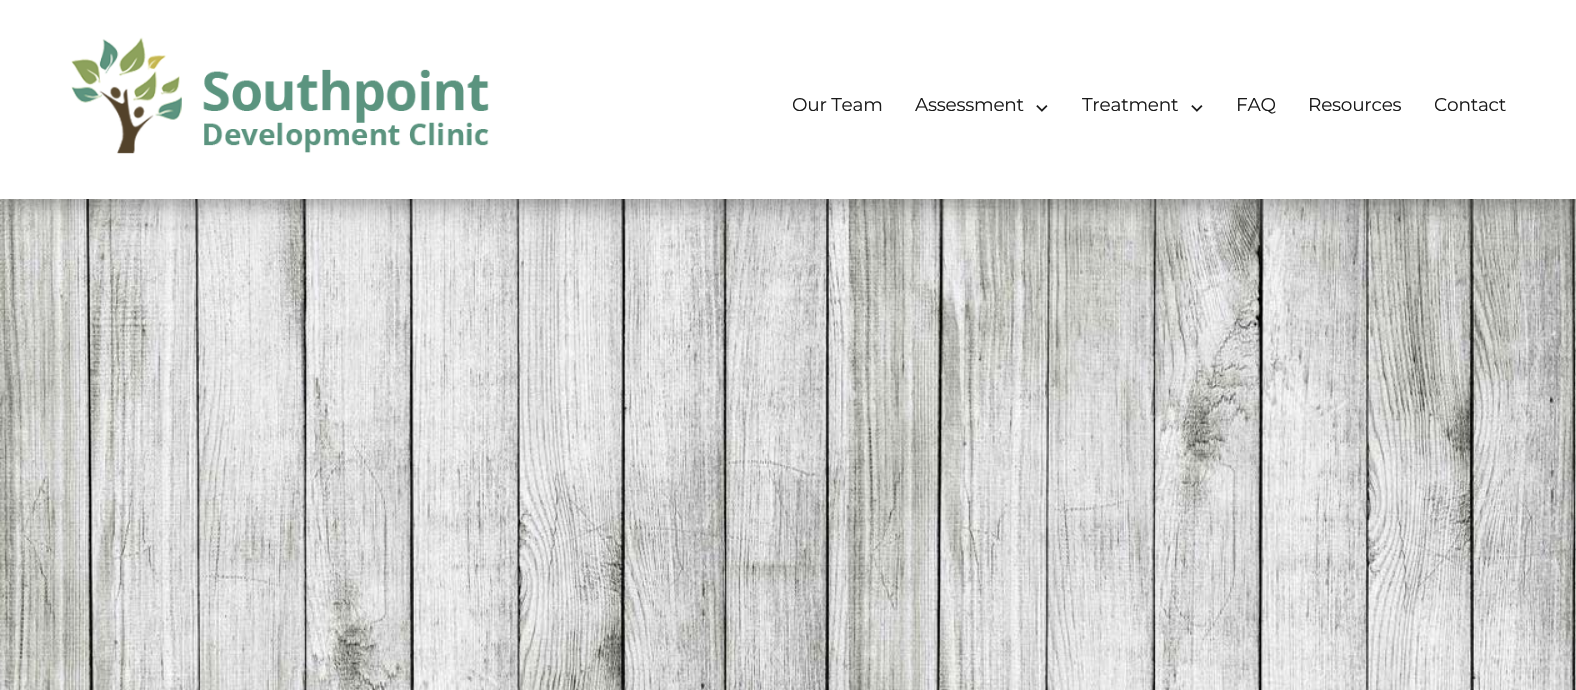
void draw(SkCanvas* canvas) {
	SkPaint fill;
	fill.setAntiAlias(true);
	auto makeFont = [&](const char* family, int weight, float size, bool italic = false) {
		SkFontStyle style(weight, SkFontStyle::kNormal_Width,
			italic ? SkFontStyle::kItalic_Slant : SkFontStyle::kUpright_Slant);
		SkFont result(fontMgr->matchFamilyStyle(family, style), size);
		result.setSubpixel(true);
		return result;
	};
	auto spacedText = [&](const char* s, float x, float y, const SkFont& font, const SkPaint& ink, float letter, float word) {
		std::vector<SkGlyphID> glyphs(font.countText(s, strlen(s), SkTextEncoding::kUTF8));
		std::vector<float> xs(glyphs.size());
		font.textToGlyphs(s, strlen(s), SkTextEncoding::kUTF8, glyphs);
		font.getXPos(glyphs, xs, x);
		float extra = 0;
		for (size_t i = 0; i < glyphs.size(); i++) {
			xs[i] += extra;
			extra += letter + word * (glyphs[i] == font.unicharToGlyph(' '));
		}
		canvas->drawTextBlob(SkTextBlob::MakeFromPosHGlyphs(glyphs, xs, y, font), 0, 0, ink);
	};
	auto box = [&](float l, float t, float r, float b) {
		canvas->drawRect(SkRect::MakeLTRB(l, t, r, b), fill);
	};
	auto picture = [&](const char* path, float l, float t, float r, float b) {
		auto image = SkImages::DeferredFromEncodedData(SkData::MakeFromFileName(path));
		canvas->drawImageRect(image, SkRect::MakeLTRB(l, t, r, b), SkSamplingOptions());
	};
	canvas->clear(0xFFFFFFFF);
	picture("image0.png", 0, 199, 1576, 690);
	fill.setColor(0x4D000000);
	fill.setMaskFilter(SkMaskFilter::MakeBlur(kNormal_SkBlurStyle, 9.5f));
	canvas->drawRect(SkRect::MakeLTRB(0, 6, 1576, 205), fill);
	fill.setMaskFilter(nullptr);
	fill.setColor(0xFFFFFFFF);
	box(0, 0, 1576, 199);
	picture("image1.png", 71, 37, 489, 154);
	picture("image2.png", 1036, 105, 1048, 112);
	picture("image2.png", 1191, 105, 1203, 112);
	auto font1 = makeFont("Montserrat", 100, 18.5f);
	fill.setColor(0xFF1A1A1A);
	spacedText("Our Team", 792, 111, font1, fill, -0.25f, 0);
	spacedText("Assessment", 915, 111, font1, fill, -0.25f, 0);
	spacedText("Treatment", 1082, 111, font1, fill, -0.25f, 0);
	spacedText("FAQ", 1236, 111, font1, fill, -0.25f, 0);
	spacedText("Resources", 1308, 111, font1, fill, -0.25f, 0);
	spacedText("Contact", 1434, 111, font1, fill, -0.25f, 0);
}
